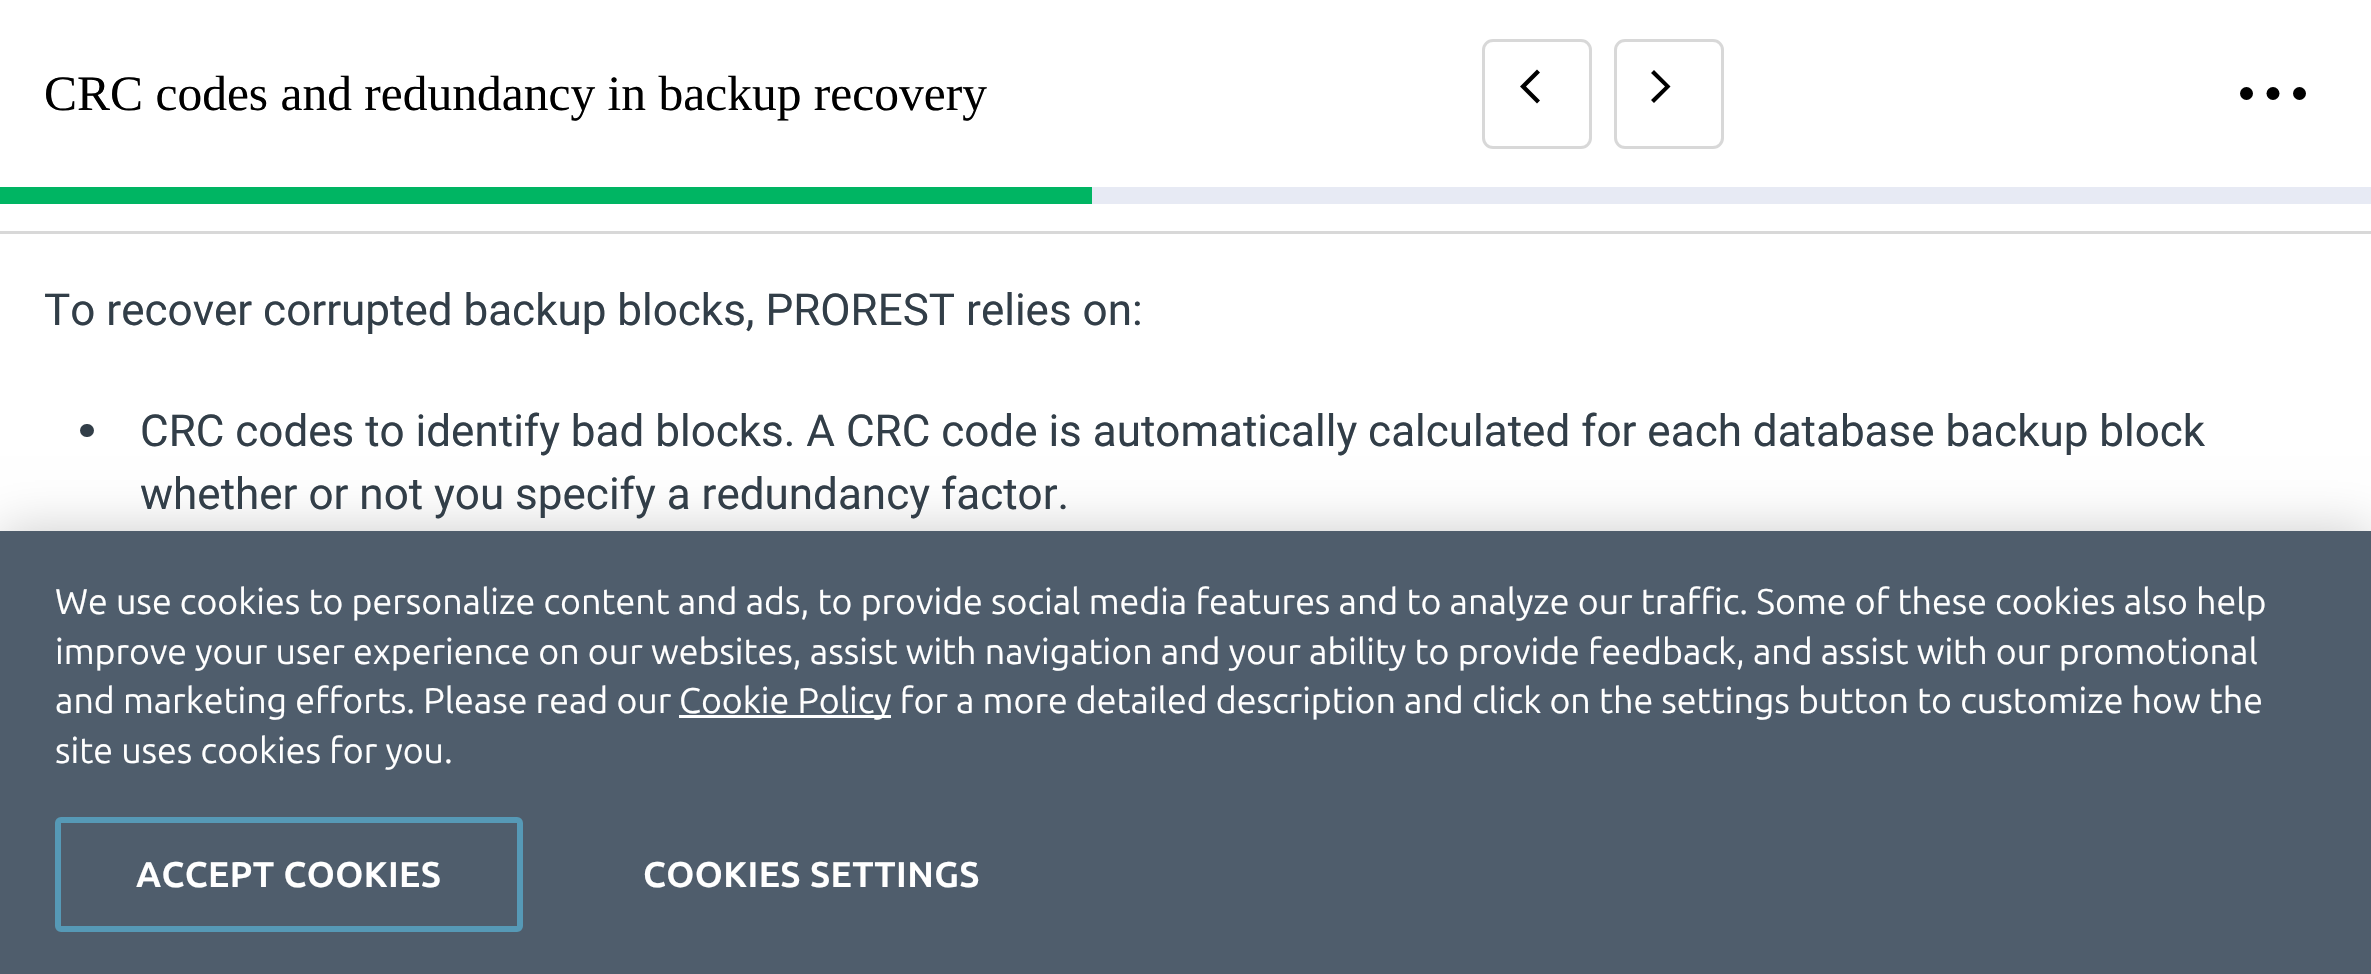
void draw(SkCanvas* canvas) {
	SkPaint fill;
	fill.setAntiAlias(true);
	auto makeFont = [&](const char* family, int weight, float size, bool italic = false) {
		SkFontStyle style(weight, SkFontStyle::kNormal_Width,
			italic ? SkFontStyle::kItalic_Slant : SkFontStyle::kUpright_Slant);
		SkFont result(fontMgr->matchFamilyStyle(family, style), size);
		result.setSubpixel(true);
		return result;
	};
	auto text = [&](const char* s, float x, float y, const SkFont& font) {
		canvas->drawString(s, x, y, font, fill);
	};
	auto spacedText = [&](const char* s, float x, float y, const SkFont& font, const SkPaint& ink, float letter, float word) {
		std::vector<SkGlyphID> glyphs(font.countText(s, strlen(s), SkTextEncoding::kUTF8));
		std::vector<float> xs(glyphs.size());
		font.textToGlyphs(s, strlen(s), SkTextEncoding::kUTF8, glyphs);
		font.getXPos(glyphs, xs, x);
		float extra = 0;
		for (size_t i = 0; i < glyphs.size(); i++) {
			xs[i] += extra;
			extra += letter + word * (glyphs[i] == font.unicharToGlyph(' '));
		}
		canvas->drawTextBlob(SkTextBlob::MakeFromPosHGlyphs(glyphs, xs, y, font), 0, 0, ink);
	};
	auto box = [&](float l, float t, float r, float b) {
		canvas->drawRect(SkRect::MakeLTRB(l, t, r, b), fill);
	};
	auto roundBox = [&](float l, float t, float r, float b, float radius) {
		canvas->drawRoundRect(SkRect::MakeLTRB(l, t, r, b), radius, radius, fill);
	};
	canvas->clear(0xFFFFFFFF);
	fill.setStyle(SkPaint::kStroke_Style);
	fill.setStrokeWidth(3);
	fill.setColor(0xFFD8D8D8);
	canvas->drawRoundRect(SkRect::MakeLTRB(1483.5f, 40.5f, 1590.5f, 147.5f), 9.5f, 9.5f, fill);
	fill.setStyle(SkPaint::kFill_Style);
	fill.setColor(0xFF000000);
	canvas->drawPath(SkPathBuilder().moveTo(1540, 72.5f).lineTo(1537, 69.5f).lineTo(1520, 86.5f).lineTo(1537, 103.5f).lineTo(1540, 100.5f).lineTo(1526, 86.5f).close().detach(), fill);
	fill.setStyle(SkPaint::kStroke_Style);
	fill.setColor(0xFFD8D8D8);
	canvas->drawRoundRect(SkRect::MakeLTRB(1615.5f, 40.5f, 1722.5f, 147.5f), 9.5f, 9.5f, fill);
	fill.setStyle(SkPaint::kFill_Style);
	fill.setColor(0xFF000000);
	canvas->drawPath(SkPathBuilder().moveTo(1651, 100).lineTo(1654, 103).lineTo(1670.5f, 86.5f).lineTo(1654, 70).lineTo(1651, 73).lineTo(1665, 86.5f).close().detach(), fill);
	canvas->drawCircle(2246.5f, 93.5f, 6.5f, fill);
	canvas->drawCircle(2273, 93.5f, 6.5f, fill);
	canvas->drawCircle(2299.5f, 93.5f, 6.5f, fill);
	fill.setColor(0xFF00B563);
	box(0, 187, 1092, 204);
	fill.setColor(0xFFE7EAF4);
	box(1092, 187, 2371, 204);
	fill.setColor(0xFFD8D8D8);
	box(0, 231, 2371, 234);
	fill.setColor(0xFF323E48);
	roundBox(80, 424, 94, 437, 6.5f);
	fill.setColor(0x33000000);
	fill.setMaskFilter(SkMaskFilter::MakeBlur(kNormal_SkBlurStyle, 25));
	canvas->drawRect(SkRect::MakeLTRB(0, 531, 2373, 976), fill);
	fill.setMaskFilter(nullptr);
	fill.setColor(0xFF4F5D6C);
	box(0, 531, 2371, 974);
	fill.setColor(0xFFFFFFFF);
	box(679, 715, 891, 718);
	fill.setStyle(SkPaint::kStroke_Style);
	fill.setStrokeWidth(6);
	fill.setColor(0xFF5699B6);
	canvas->drawRoundRect(SkRect::MakeLTRB(58, 820, 520, 929), 3, 3, fill);
	auto font1 = makeFont("Liberation Serif", 400, 49.5f);
	fill.setStyle(SkPaint::kFill_Style);
	fill.setColor(0xFF000000);
	text("CRC codes and redundancy in backup recovery", 44, 110, font1);
	auto font2 = makeFont("Roboto", 400, 44);
	fill.setColor(0xFF323E48);
	text("To recover corrupted backup blocks, PROREST relies on:", 44, 325, font2);
	text("CRC codes to identify bad blocks. A CRC code is automatically calculated for each database backup block", 140, 446, font2);
	text("whether or not you specify a redundancy factor.", 140, 509, font2);
	auto font3 = makeFont("Ubuntu", 400, 35.75f);
	fill.setColor(0xFFFFFFFF);
	text("We use cookies to personalize content and ads, to provide social media features and to analyze our traffic. Some of these cookies also help", 55, 614, font3);
	text("improve your user experience on our websites, assist with navigation and your ability to provide feedback, and assist with our promotional", 55, 664, font3);
	text("and marketing efforts. Please read our", 55, 713, font3);
	text("Cookie Policy for a more detailed description and click on the settings button to customize how the", 679, 713, font3);
	text("site uses cookies for you.", 55, 763, font3);
	auto font4 = makeFont("Ubuntu", 700, 35.75f);
	spacedText("ACCEPT COOKIES", 136, 887, font4, fill, 0.4f, 0);
	spacedText("COOKIES SETTINGS", 643, 887, font4, fill, 0.4f, 0);
}
